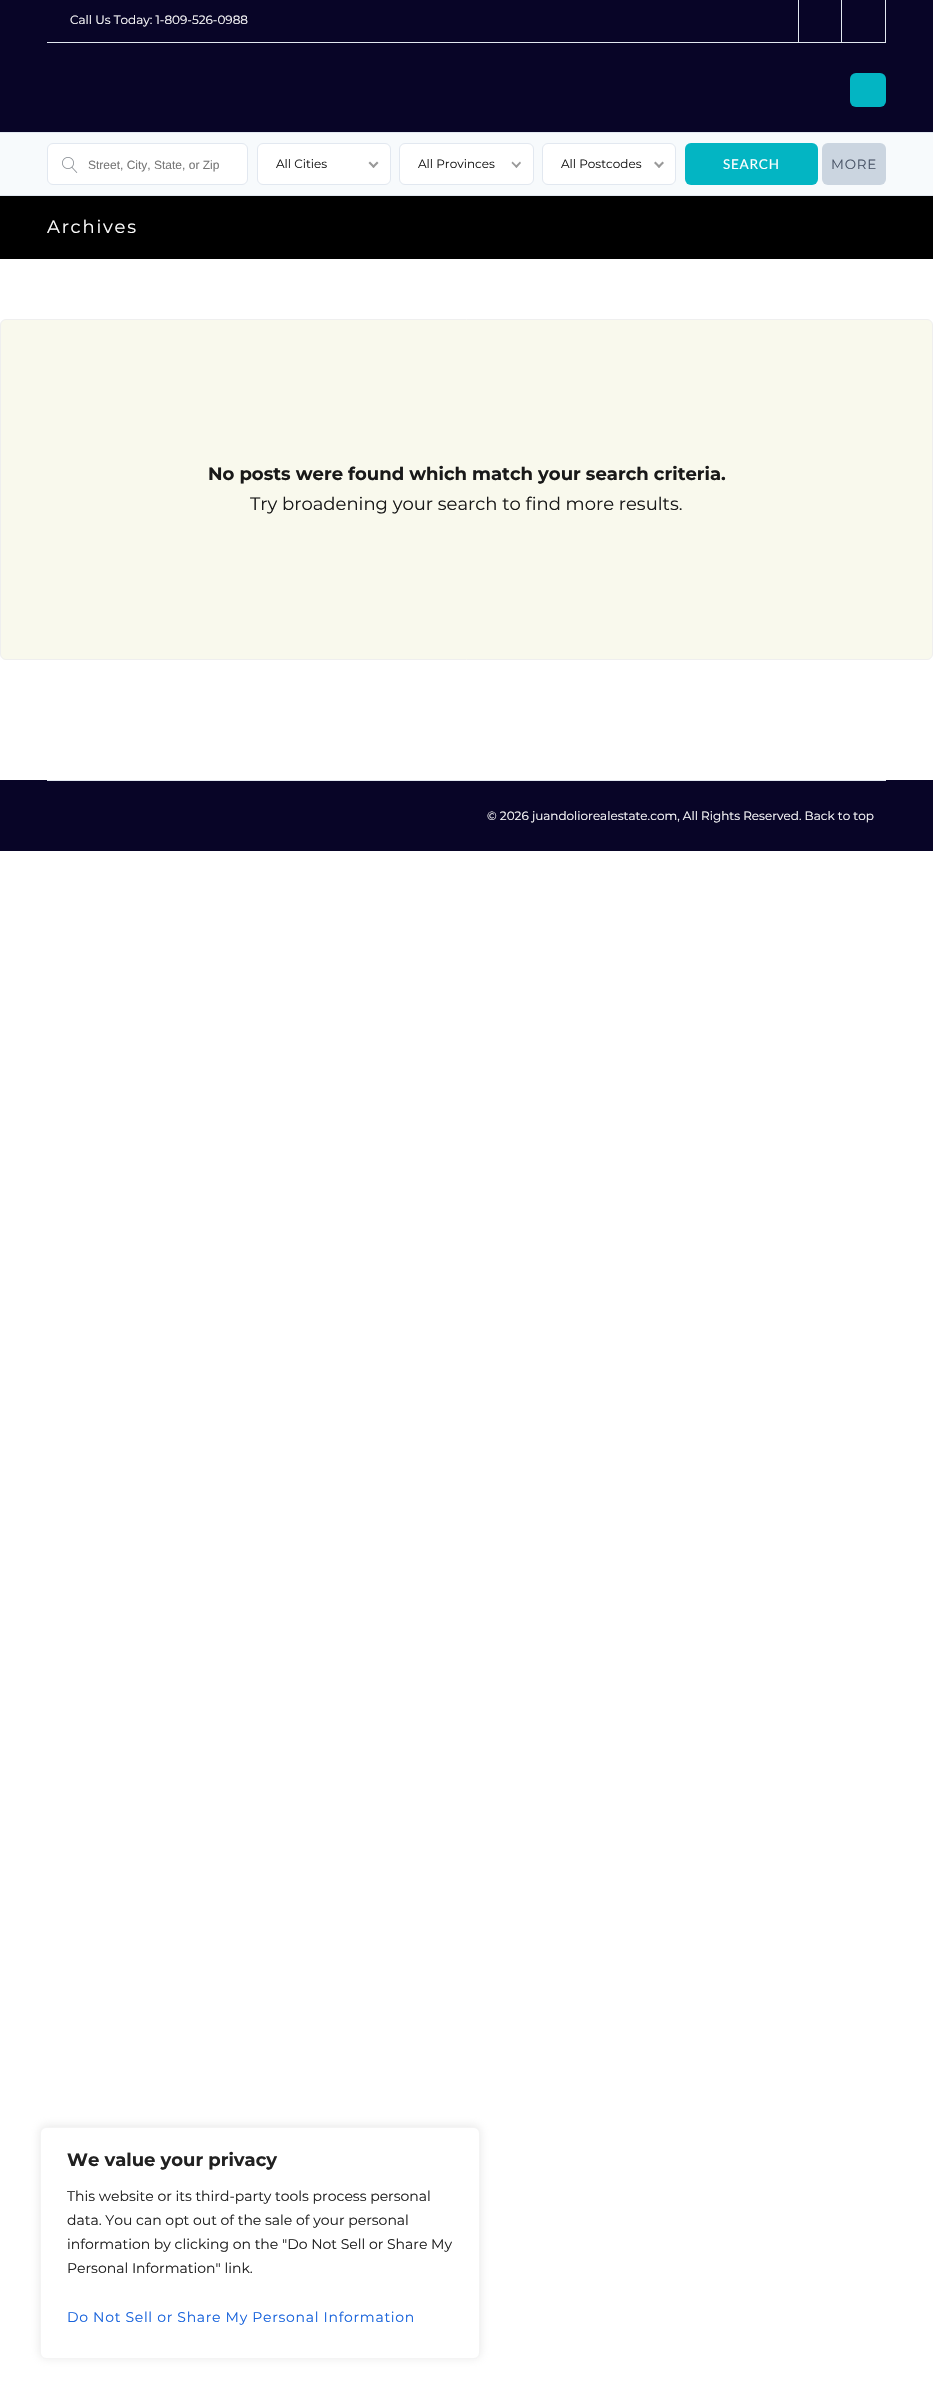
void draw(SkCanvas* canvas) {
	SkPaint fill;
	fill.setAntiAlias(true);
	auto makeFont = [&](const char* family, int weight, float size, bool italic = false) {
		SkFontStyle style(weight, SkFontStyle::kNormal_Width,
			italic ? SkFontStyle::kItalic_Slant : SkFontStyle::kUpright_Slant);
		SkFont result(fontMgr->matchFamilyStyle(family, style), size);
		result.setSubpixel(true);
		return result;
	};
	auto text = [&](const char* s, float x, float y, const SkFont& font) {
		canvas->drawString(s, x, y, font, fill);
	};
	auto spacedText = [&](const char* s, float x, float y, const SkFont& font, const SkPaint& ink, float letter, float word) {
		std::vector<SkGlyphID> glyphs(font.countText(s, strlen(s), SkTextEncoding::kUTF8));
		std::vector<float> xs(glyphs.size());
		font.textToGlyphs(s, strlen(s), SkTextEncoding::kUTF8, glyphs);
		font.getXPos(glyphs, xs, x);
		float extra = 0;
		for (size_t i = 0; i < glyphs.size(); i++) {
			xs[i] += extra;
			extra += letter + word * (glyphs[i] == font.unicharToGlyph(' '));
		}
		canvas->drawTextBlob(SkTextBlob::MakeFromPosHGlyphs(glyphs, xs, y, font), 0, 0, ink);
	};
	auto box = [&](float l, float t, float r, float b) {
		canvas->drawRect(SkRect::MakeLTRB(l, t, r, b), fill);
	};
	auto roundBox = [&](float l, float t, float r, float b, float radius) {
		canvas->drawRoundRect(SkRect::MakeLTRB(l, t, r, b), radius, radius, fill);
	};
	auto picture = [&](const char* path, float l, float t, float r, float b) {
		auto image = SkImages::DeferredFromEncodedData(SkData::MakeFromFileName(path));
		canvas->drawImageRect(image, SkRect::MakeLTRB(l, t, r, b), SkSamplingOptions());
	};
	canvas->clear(0xFFFFFFFF);
	fill.setColor(0xFF080527);
	box(0, 0, 933, 132);
	fill.setColor(0xFF03B5C3);
	roundBox(850, 73, 886, 107, 6);
	fill.setColor(0xFFE2E8F0);
	box(47, 42, 886, 43);
	box(841, 0, 842, 42);
	box(798, 0, 799, 42);
	box(885, 0, 886, 42);
	fill.setColor(0xFFF7FAFC);
	box(0, 133, 933, 195);
	fill.setColor(0xFFE2E8F0);
	box(0, 132, 933, 133);
	box(0, 195, 933, 196);
	fill.setColor(0xFFFFFFFF);
	canvas->drawRoundRect(SkRect::MakeLTRB(47.5f, 143.5f, 247.5f, 184.5f), 5.5f, 5.5f, fill);
	fill.setStyle(SkPaint::kStroke_Style);
	fill.setStrokeWidth(1);
	fill.setColor(0xFFE2E8F0);
	canvas->drawRoundRect(SkRect::MakeLTRB(47.5f, 143.5f, 247.5f, 184.5f), 5.5f, 5.5f, fill);
	picture("image0.png", 62, 157, 78, 173);
	fill.setStyle(SkPaint::kFill_Style);
	fill.setColor(0xFFFFFFFF);
	canvas->drawRoundRect(SkRect::MakeLTRB(257.5f, 143.5f, 390.5f, 184.5f), 5.5f, 5.5f, fill);
	fill.setStyle(SkPaint::kStroke_Style);
	fill.setColor(0xFFE2E8F0);
	canvas->drawRoundRect(SkRect::MakeLTRB(257.5f, 143.5f, 390.5f, 184.5f), 5.5f, 5.5f, fill);
	fill.setStyle(SkPaint::kFill_Style);
	fill.setColor(0xFF999999);
	canvas->drawPath(SkPathBuilder().moveTo(377, 161.5f).lineTo(378.5f, 163).lineTo(373.5f, 168).lineTo(372, 166.5f).close().detach(), fill);
	canvas->drawPath(SkPathBuilder().moveTo(370, 161.5f).lineTo(375, 166.5f).lineTo(373.5f, 168).lineTo(368.5f, 163).close().detach(), fill);
	fill.setColor(0xFFFFFFFF);
	canvas->drawRoundRect(SkRect::MakeLTRB(399.5f, 143.5f, 533.5f, 184.5f), 5.5f, 5.5f, fill);
	fill.setStyle(SkPaint::kStroke_Style);
	fill.setColor(0xFFE2E8F0);
	canvas->drawRoundRect(SkRect::MakeLTRB(399.5f, 143.5f, 533.5f, 184.5f), 5.5f, 5.5f, fill);
	fill.setStyle(SkPaint::kFill_Style);
	fill.setColor(0xFF999999);
	canvas->drawPath(SkPathBuilder().moveTo(520, 161.5f).lineTo(521, 163).lineTo(516.5f, 168).lineTo(515, 166.5f).close().detach(), fill);
	canvas->drawPath(SkPathBuilder().moveTo(512.5f, 161.5f).lineTo(517.5f, 166.5f).lineTo(516.5f, 168).lineTo(511.5f, 163).close().detach(), fill);
	fill.setColor(0xFFFFFFFF);
	canvas->drawRoundRect(SkRect::MakeLTRB(542.5f, 143.5f, 675.5f, 184.5f), 5.5f, 5.5f, fill);
	fill.setStyle(SkPaint::kStroke_Style);
	fill.setColor(0xFFE2E8F0);
	canvas->drawRoundRect(SkRect::MakeLTRB(542.5f, 143.5f, 675.5f, 184.5f), 5.5f, 5.5f, fill);
	fill.setStyle(SkPaint::kFill_Style);
	fill.setColor(0xFF999999);
	canvas->drawPath(SkPathBuilder().moveTo(662.5f, 161.5f).lineTo(664, 163).lineTo(659, 168).lineTo(657.5f, 166.5f).close().detach(), fill);
	canvas->drawPath(SkPathBuilder().moveTo(655.5f, 161.5f).lineTo(660.5f, 166.5f).lineTo(659, 168).lineTo(654, 163).close().detach(), fill);
	fill.setColor(0xFF03B5C3);
	roundBox(685, 143, 818, 185, 6);
	fill.setColor(0xFFCBD5E0);
	roundBox(822, 143, 886, 185, 6);
	fill.setColor(0xFF000000);
	box(0, 196, 933, 259);
	fill.setColor(0xFFF9F9ED);
	canvas->drawRoundRect(SkRect::MakeLTRB(0.5f, 319.5f, 932.5f, 659.5f), 5.5f, 5.5f, fill);
	fill.setStyle(SkPaint::kStroke_Style);
	fill.setColor(0xFFEFEFEF);
	canvas->drawRoundRect(SkRect::MakeLTRB(0.5f, 319.5f, 932.5f, 659.5f), 5.5f, 5.5f, fill);
	fill.setStyle(SkPaint::kFill_Style);
	fill.setColor(0xFF080527);
	box(0, 780, 933, 851);
	fill.setColor(0xFFE2E8F0);
	box(47, 780, 886, 781);
	fill.setColor(0x4DACABAB);
	fill.setMaskFilter(SkMaskFilter::MakeBlur(kNormal_SkBlurStyle, 5));
	canvas->drawRoundRect(SkRect::MakeLTRB(40, 2126, 480, 2358), 6, 6, fill);
	fill.setMaskFilter(nullptr);
	fill.setColor(0xFFFFFFFF);
	canvas->drawRoundRect(SkRect::MakeLTRB(40.5f, 2127.5f, 479.5f, 2358.5f), 5.5f, 5.5f, fill);
	fill.setStyle(SkPaint::kStroke_Style);
	fill.setColor(0xFFF4F4F4);
	canvas->drawRoundRect(SkRect::MakeLTRB(40.5f, 2127.5f, 479.5f, 2358.5f), 5.5f, 5.5f, fill);
	auto font1 = makeFont("Montserrat", 400, 12);
	fill.setStyle(SkPaint::kFill_Style);
	fill.setColor(0xFFFFFFFF);
	text("Call Us Today: 1-809-526-0988", 70, 24, font1);
	auto font2 = makeFont("Liberation Sans", 400, 12);
	fill.setColor(0xFF777777);
	text("Street, City, State, or Zip", 88, 169, font2);
	fill.setColor(0xFF191919);
	text("All Cities", 276, 168, font1);
	text("All Provinces", 418, 168, font1);
	text("All Postcodes", 561, 168, font1);
	auto font3 = makeFont("Lato", 400, 13.5f);
	fill.setColor(0xFFFFFFFF);
	spacedText("SEARCH", 723, 169, font3, fill, 0.75f, 0);
	auto font4 = makeFont("Montserrat", 400, 13.5f);
	fill.setColor(0xFF4A5568);
	spacedText("MORE", 831, 169, font4, fill, 0.75f, 0);
	auto font5 = makeFont("Montserrat", 400, 18);
	fill.setColor(0xFFFFFFFF);
	spacedText("Archives", 47, 233, font5, fill, 1.75f, 0);
	auto font6 = makeFont("Montserrat", 700, 18);
	fill.setColor(0xFF191919);
	text("No posts were found which match your search criteria.", 208, 480, font6);
	text("Try broadening your search to find more results.", 250, 510, font5);
	fill.setColor(0xFFFFFFFF);
	text("© 2026 juandoliorealestate.com, All Rights Reserved. Back to top", 487, 820, font1);
	fill.setColor(0xFF212121);
	text("We value your privacy", 67, 2166, font6);
	auto font7 = makeFont("Montserrat", 400, 14);
	text("This website or its third-party tools process personal", 67, 2201, font7);
	text("data. You can opt out of the sale of your personal", 67, 2225, font7);
	text("information by clicking on the \"Do Not Sell or Share My", 67, 2249, font7);
	text("Personal Information\" link.", 67, 2273, font7);
	fill.setColor(0xFF1863DC);
	spacedText("Do Not Sell or Share My Personal Information", 67, 2322, font7, fill, 0.7f, 0);
}
